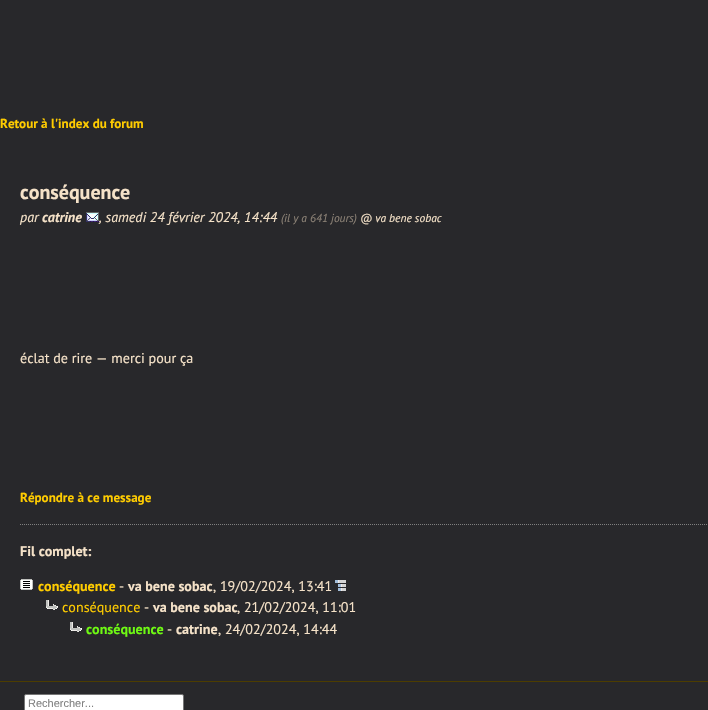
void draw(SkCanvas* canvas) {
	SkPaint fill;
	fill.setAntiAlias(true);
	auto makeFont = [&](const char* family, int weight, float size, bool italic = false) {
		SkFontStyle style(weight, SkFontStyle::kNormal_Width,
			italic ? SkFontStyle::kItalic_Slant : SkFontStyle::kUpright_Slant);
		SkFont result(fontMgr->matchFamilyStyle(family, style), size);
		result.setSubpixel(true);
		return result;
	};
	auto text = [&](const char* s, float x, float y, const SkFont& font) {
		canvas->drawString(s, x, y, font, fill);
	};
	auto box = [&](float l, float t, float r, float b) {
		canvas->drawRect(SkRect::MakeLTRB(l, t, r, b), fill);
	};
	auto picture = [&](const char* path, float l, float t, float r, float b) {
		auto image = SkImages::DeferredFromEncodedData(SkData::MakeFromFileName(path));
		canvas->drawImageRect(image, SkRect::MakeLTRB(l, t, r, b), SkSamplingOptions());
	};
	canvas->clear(0xFF28282B);
	picture("image0.png", 86, 212, 99, 222);
	fill.setStyle(SkPaint::kStroke_Style);
	fill.setStrokeWidth(1);
	fill.setColor(0xFF808080);
	fill.setPathEffect(SkDashPathEffect::Make({{1, 1}}, 0));
	canvas->drawPath(SkPathBuilder().moveTo(20, 524.5f).lineTo(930, 524.5f).detach(), fill);
	fill.setPathEffect(nullptr);
	picture("image1.png", 20, 579, 33, 590);
	picture("image2.png", 335, 580, 346, 591);
	picture("image3.png", 46, 600, 58, 610);
	picture("image3.png", 70, 622, 82, 632);
	fill.setStyle(SkPaint::kFill_Style);
	fill.setColor(0xFF4D3D00);
	box(0, 681, 708, 682);
	fill.setColor(0xFFFFFFFF);
	canvas->drawRoundRect(SkRect::MakeLTRB(24.5f, 694.5f, 183.5f, 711.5f), 1.5f, 1.5f, fill);
	fill.setStyle(SkPaint::kStroke_Style);
	fill.setColor(0xFF767676);
	canvas->drawRoundRect(SkRect::MakeLTRB(24.5f, 694.5f, 183.5f, 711.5f), 1.5f, 1.5f, fill);
	auto font1 = makeFont("PT Sans", 700, 13.1f);
	fill.setStyle(SkPaint::kFill_Style);
	fill.setColor(0xFFFFCC00);
	text("Retour à l'index du forum", 0, 128, font1);
	auto font2 = makeFont("PT Sans", 700, 20);
	fill.setColor(0xFFF5E2C8);
	text("conséquence", 20, 199, font2);
	auto font3 = makeFont("PT Sans", 400, 14.1f, true);
	text("par", 20, 222, font3);
	auto font4 = makeFont("PT Sans", 700, 14.1f, true);
	text("catrine", 42, 222, font4);
	text(", samedi 24 février 2024, 14:44", 99, 222, font3);
	auto font5 = makeFont("PT Sans", 400, 11.5f, true);
	fill.setColor(0xFF8C8276);
	text("(il y a 641 jours)", 281, 222, font5);
	fill.setColor(0xFFF5E2C8);
	text("@ va bene sobac", 360, 222, font5);
	auto font6 = makeFont("PT Sans", 400, 14.1f);
	text("éclat de rire — merci pour ça", 20, 363, font6);
	fill.setColor(0xFFFFCC00);
	text("Répondre à ce message", 20, 502, font1);
	auto font7 = makeFont("PT Sans", 700, 14.1f);
	fill.setColor(0xFFF5E2C8);
	text("Fil complet:", 20, 556, font7);
	fill.setColor(0xFFFFCC00);
	text("conséquence", 38, 591, font7);
	fill.setColor(0xFFF5E2C8);
	text("-", 119, 591, font6);
	text("va bene sobac", 128, 591, font7);
	text(", 19/02/2024, 13:41", 213, 591, font6);
	fill.setColor(0xFFFFCC00);
	text("conséquence", 62, 612, font6);
	fill.setColor(0xFFF5E2C8);
	text("-", 144, 612, font6);
	text("va bene sobac", 153, 612, font7);
	text(", 21/02/2024, 11:01", 237, 612, font6);
	fill.setColor(0xFF6FFA13);
	text("conséquence", 86, 634, font7);
	fill.setColor(0xFFF5E2C8);
	text("-", 167, 634, font6);
	text("catrine", 176, 634, font7);
	text(", 24/02/2024, 14:44", 218, 634, font6);
	auto font8 = makeFont("Liberation Sans", 400, 11);
	fill.setColor(0xFF808080);
	text("Rechercher...", 28, 707, font8);
}
